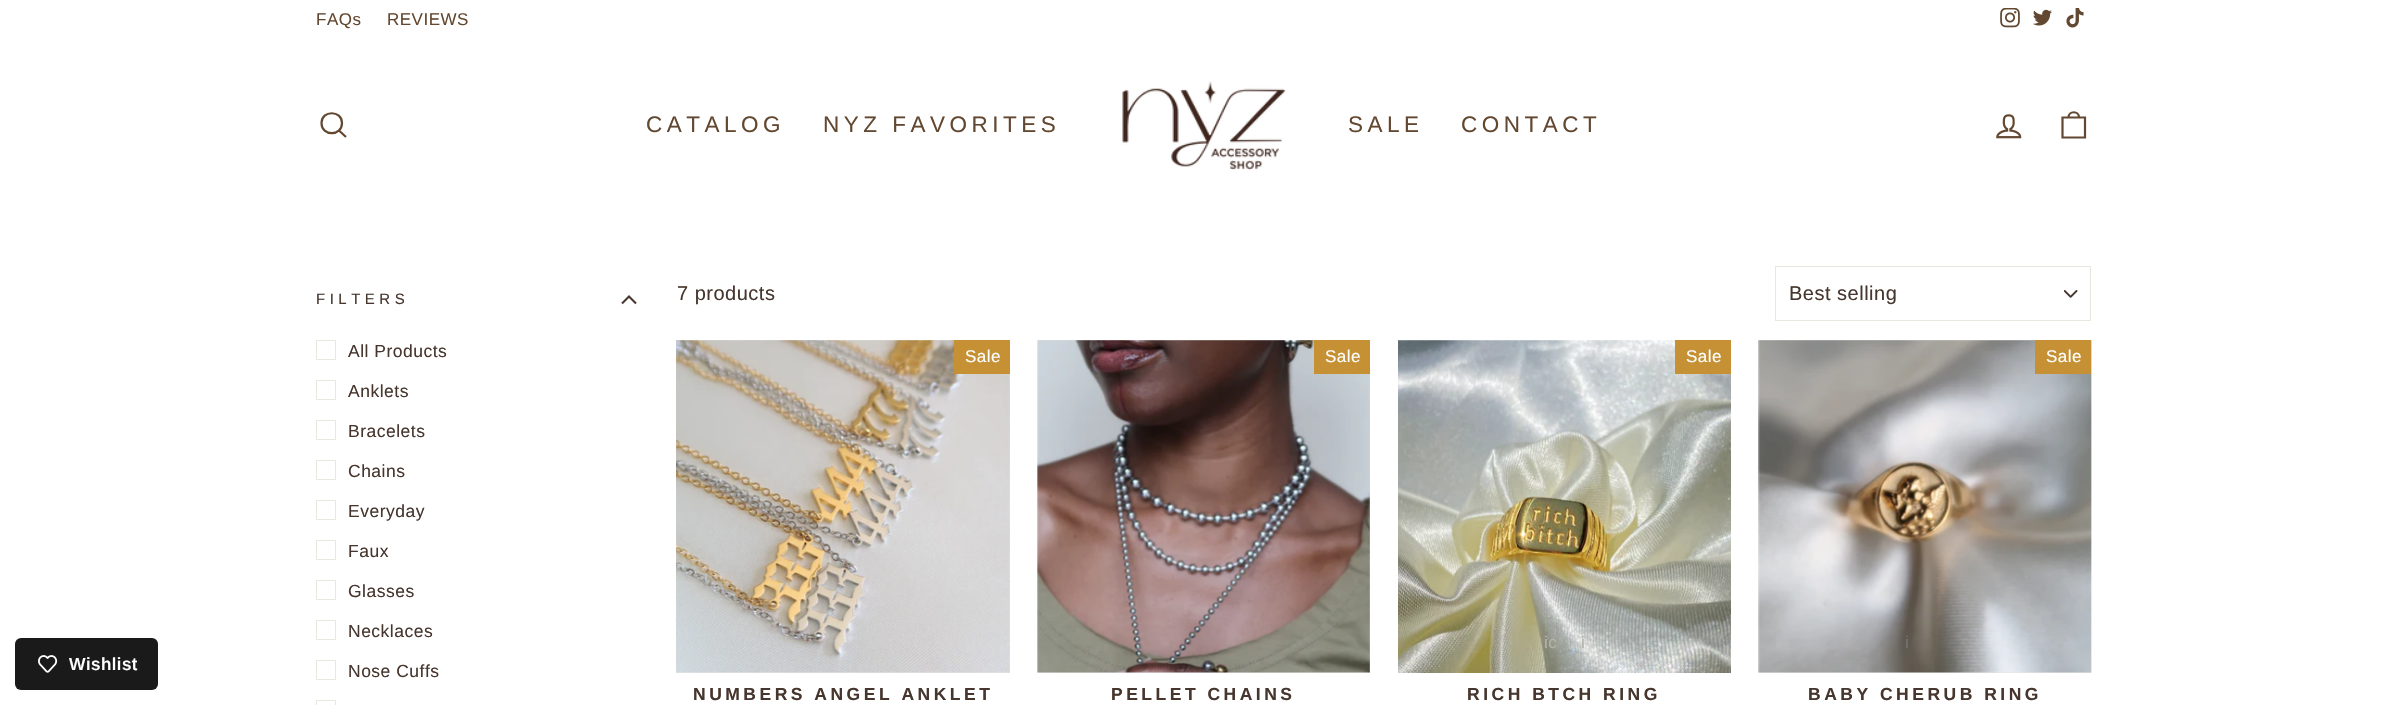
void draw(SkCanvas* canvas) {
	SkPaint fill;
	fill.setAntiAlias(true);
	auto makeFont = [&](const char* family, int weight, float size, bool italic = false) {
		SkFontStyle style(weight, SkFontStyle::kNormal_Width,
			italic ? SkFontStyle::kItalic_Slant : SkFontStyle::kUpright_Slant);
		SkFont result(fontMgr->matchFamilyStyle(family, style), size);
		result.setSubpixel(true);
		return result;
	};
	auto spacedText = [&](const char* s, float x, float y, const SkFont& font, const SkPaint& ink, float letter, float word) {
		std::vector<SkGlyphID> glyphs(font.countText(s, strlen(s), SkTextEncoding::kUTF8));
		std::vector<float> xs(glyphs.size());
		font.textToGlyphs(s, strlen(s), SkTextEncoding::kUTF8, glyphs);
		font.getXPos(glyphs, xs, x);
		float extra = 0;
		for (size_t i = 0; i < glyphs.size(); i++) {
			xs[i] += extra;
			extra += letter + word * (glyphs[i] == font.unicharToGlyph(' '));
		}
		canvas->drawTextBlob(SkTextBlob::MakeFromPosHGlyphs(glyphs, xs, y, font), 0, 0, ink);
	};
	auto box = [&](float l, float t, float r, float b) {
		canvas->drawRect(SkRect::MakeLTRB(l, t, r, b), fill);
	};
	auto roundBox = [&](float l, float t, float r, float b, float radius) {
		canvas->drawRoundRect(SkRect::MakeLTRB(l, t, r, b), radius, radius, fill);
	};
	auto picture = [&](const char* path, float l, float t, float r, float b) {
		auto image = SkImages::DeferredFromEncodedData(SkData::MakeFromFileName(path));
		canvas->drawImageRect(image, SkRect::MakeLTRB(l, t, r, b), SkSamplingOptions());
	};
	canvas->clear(0xFFFFFFFF);
	fill.setColor(0xFF1A1A1A);
	roundBox(15, 638, 158, 690, 6);
	picture("image0.png", 38, 655, 58, 673);
	picture("image1.png", 2000, 8, 2020, 28);
	picture("image2.png", 2033, 9, 2052, 26);
	picture("image3.png", 2066, 8, 2084, 28);
	fill.setStyle(SkPaint::kStroke_Style);
	fill.setStrokeWidth(2.2f);
	fill.setColor(0xFF634831);
	canvas->drawPath(SkPathBuilder().moveTo(342, 123).cubicTo(342, 136.5f, 321.5f, 136.5f, 321.5f, 123).cubicTo(321.5f, 110, 342, 110, 342, 123).close().moveTo(346, 137).lineTo(339, 130.5f).detach(), fill);
	picture("image4.png", 1122, 81, 1286, 170);
	picture("image5.png", 1996, 114, 2022, 139);
	canvas->drawPath(SkPathBuilder().moveTo(2062.5f, 117.5f).lineTo(2085, 117.5f).lineTo(2085, 137.5f).lineTo(2062.5f, 137.5f).close().moveTo(2068.5f, 117.5f).cubicTo(2068.5f, 110.5f, 2079, 110.5f, 2079, 117.5f).detach(), fill);
	fill.setStrokeWidth(2.1f);
	fill.setColor(0xFF46362E);
	canvas->drawPath(SkPathBuilder().moveTo(622, 303.5f).lineTo(629, 296.5f).lineTo(636, 303.5f).detach(), fill);
	fill.setStrokeWidth(1);
	fill.setColor(0xFFE8E8E1);
	canvas->drawRect(SkRect::MakeLTRB(316.5f, 340.5f, 335.5f, 359.5f), fill);
	canvas->drawRect(SkRect::MakeLTRB(316.5f, 380.5f, 335.5f, 399.5f), fill);
	canvas->drawRect(SkRect::MakeLTRB(316.5f, 420.5f, 335.5f, 439.5f), fill);
	canvas->drawRect(SkRect::MakeLTRB(316.5f, 460.5f, 335.5f, 479.5f), fill);
	canvas->drawRect(SkRect::MakeLTRB(316.5f, 500.5f, 335.5f, 519.5f), fill);
	canvas->drawRect(SkRect::MakeLTRB(316.5f, 540.5f, 335.5f, 559.5f), fill);
	canvas->drawRect(SkRect::MakeLTRB(316.5f, 580.5f, 335.5f, 599.5f), fill);
	canvas->drawRect(SkRect::MakeLTRB(316.5f, 620.5f, 335.5f, 639.5f), fill);
	canvas->drawRect(SkRect::MakeLTRB(316.5f, 660.5f, 335.5f, 679.5f), fill);
	canvas->drawRect(SkRect::MakeLTRB(316.5f, 700.5f, 335.5f, 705.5f), fill);
	picture("image6.png", 2064, 290, 2078, 298);
	canvas->drawRect(SkRect::MakeLTRB(1775.5f, 266.5f, 2090.5f, 320.5f), fill);
	fill.setStyle(SkPaint::kFill_Style);
	fill.setColor(0xFFE5E5E5);
	box(676, 340, 1010, 673);
	picture("image7.png", 676, 340, 1010, 673);
	fill.setColor(0xFFC69134);
	box(954, 340, 1010, 374);
	fill.setColor(0xFFE5E5E5);
	box(1038, 340, 1370, 673);
	picture("image8.png", 1037, 340, 1370, 673);
	fill.setColor(0xFFC69134);
	box(1314, 340, 1370, 374);
	picture("image9.png", 1398, 340, 1731, 673);
	box(1675, 340, 1731, 374);
	fill.setColor(0xFFE5E5E5);
	box(1759, 340, 2091, 673);
	picture("image10.png", 1758, 340, 2092, 673);
	fill.setColor(0xFFC69134);
	box(2035, 340, 2091, 374);
	auto font1 = makeFont("Arimo", 600, 17.5f);
	fill.setColor(0xFFFFFFFF);
	spacedText("Wishlist", 69, 670, font1, fill, 0.5f, 0);
	auto font2 = makeFont("Arimo", 400, 17);
	fill.setColor(0xFF634831);
	spacedText("FAQs", 316, 25, font2, fill, 0.5f, 0);
	spacedText("REVIEWS", 387, 25, font2, fill, 0.5f, 0);
	auto font3 = makeFont("Arimo", 400, 22.5f);
	spacedText("CATALOG", 646, 132, font3, fill, 4.5f, 0);
	spacedText("NYZ FAVORITES", 823, 132, font3, fill, 4.5f, 0);
	spacedText("SALE", 1348, 132, font3, fill, 4.5f, 0);
	spacedText("CONTACT", 1461, 132, font3, fill, 4.5f, 0);
	auto font4 = makeFont("Arimo", 400, 15);
	fill.setColor(0xFF46362E);
	spacedText("FILTERS", 316, 304, font4, fill, 4.5f, 0);
	auto font5 = makeFont("Arimo", 400, 17.5f);
	spacedText("All Products", 348, 357, font5, fill, 0.5f, 0);
	spacedText("Anklets", 348, 397, font5, fill, 0.5f, 0);
	spacedText("Bracelets", 348, 437, font5, fill, 0.5f, 0);
	spacedText("Chains", 348, 477, font5, fill, 0.5f, 0);
	spacedText("Everyday", 348, 517, font5, fill, 0.5f, 0);
	spacedText("Faux", 348, 557, font5, fill, 0.5f, 0);
	spacedText("Glasses", 348, 597, font5, fill, 0.5f, 0);
	spacedText("Necklaces", 348, 637, font5, fill, 0.5f, 0);
	spacedText("Nose Cuffs", 348, 677, font5, fill, 0.5f, 0);
	auto font6 = makeFont("Arimo", 400, 20);
	spacedText("7 products", 677, 300, font6, fill, 0.5f, 0);
	spacedText("Best selling", 1789, 300, font6, fill, 0.5f, 0);
	fill.setColor(0xFFFFFFFF);
	spacedText("Sale", 965, 362, font2, fill, 0.5f, 0);
	auto font7 = makeFont("Arimo", 700, 17.5f);
	fill.setColor(0xFF46362E);
	spacedText("NUMBERS ANGEL ANKLET", 693, 700, font7, fill, 3.5f, 0);
	fill.setColor(0xFFFFFFFF);
	spacedText("Sale", 1325, 362, font2, fill, 0.5f, 0);
	fill.setColor(0xFF46362E);
	spacedText("PELLET CHAINS", 1111, 700, font7, fill, 3.5f, 0);
	fill.setColor(0xFFFFFFFF);
	spacedText("Sale", 1686, 362, font2, fill, 0.5f, 0);
	fill.setColor(0xFFB4B5A8);
	spacedText("ic", 1544, 648, font2, fill, 0.5f, 0);
	spacedText("i", 1581, 648, font2, fill, 0.5f, 0);
	fill.setColor(0xFF46362E);
	spacedText("RICH BTCH RING", 1467, 700, font7, fill, 3.5f, 0);
	fill.setColor(0xFFFFFFFF);
	spacedText("Sale", 2046, 362, font2, fill, 0.5f, 0);
	fill.setColor(0xFF76726C);
	spacedText("i", 1905, 648, font2, fill, 0.5f, 0);
	fill.setColor(0xFF46362E);
	spacedText("BABY CHERUB RING", 1808, 700, font7, fill, 3.5f, 0);
}
